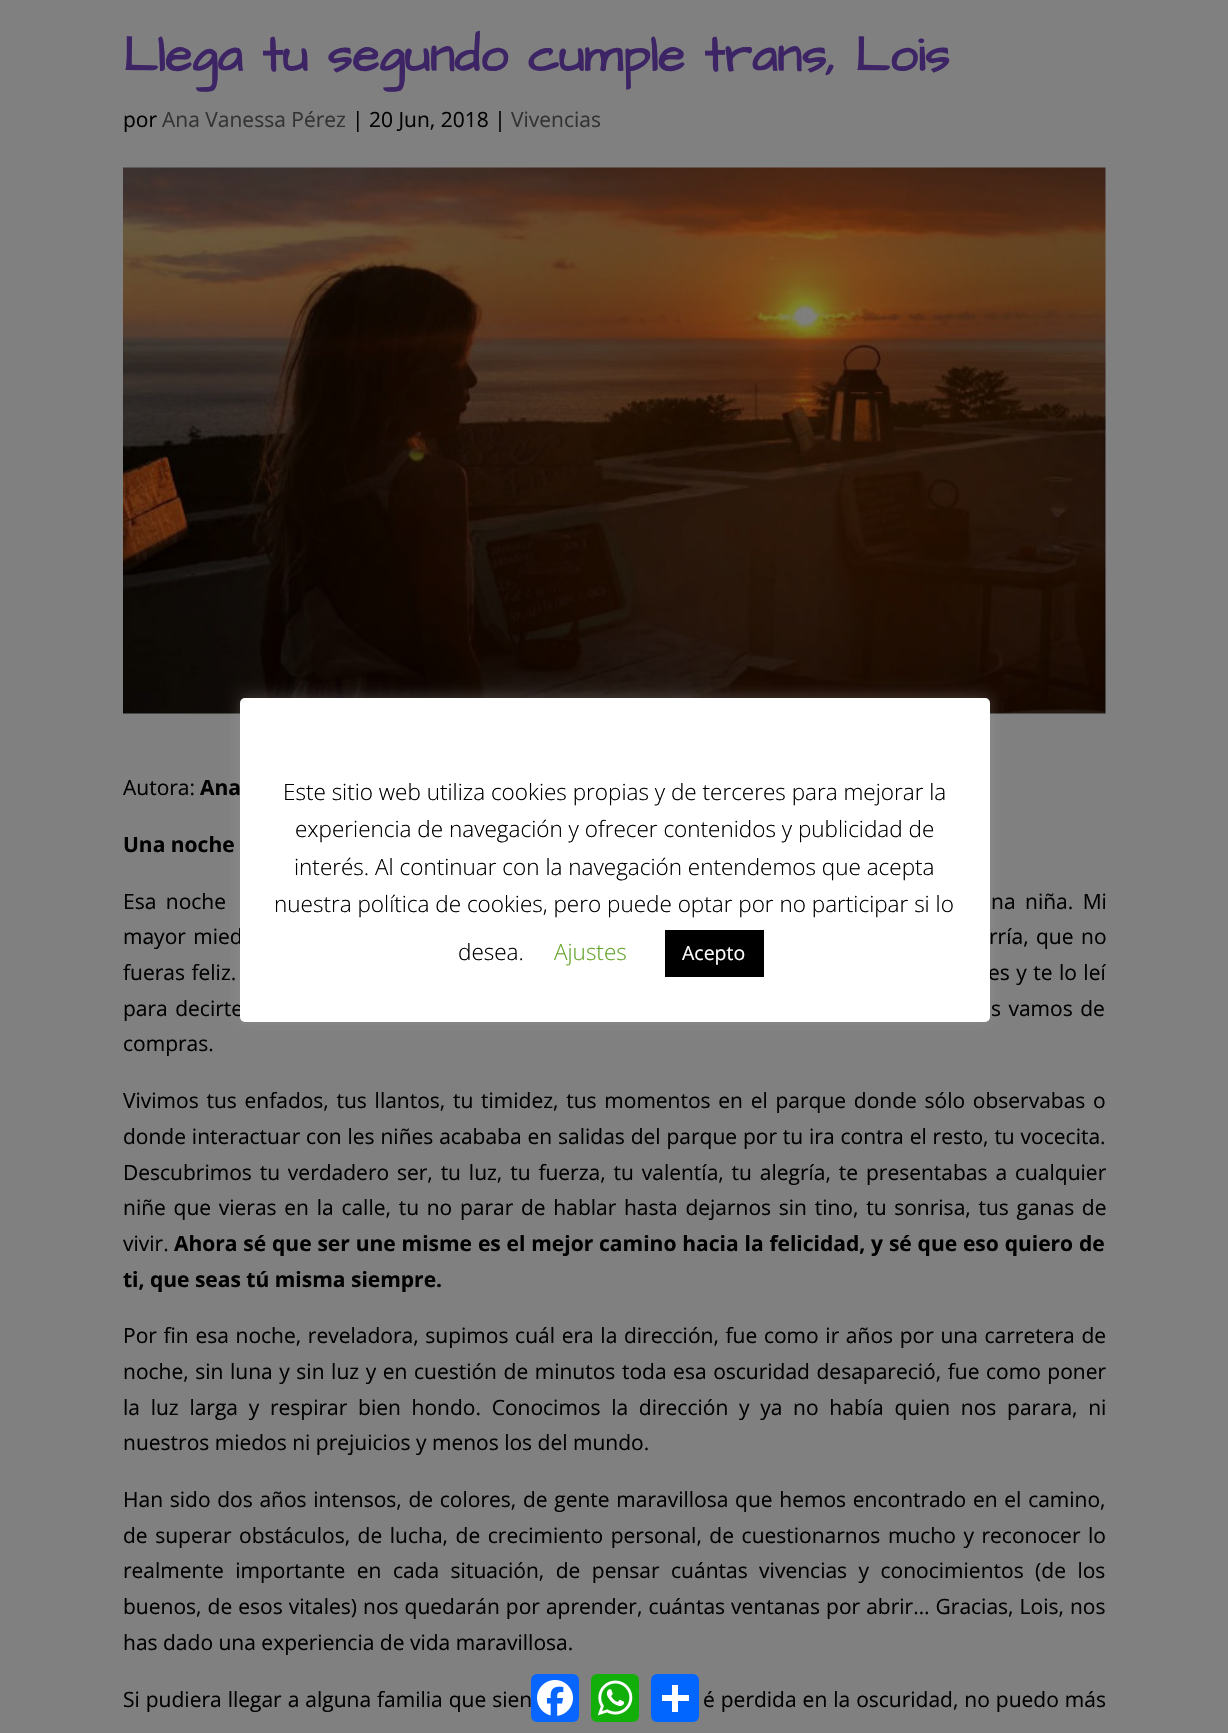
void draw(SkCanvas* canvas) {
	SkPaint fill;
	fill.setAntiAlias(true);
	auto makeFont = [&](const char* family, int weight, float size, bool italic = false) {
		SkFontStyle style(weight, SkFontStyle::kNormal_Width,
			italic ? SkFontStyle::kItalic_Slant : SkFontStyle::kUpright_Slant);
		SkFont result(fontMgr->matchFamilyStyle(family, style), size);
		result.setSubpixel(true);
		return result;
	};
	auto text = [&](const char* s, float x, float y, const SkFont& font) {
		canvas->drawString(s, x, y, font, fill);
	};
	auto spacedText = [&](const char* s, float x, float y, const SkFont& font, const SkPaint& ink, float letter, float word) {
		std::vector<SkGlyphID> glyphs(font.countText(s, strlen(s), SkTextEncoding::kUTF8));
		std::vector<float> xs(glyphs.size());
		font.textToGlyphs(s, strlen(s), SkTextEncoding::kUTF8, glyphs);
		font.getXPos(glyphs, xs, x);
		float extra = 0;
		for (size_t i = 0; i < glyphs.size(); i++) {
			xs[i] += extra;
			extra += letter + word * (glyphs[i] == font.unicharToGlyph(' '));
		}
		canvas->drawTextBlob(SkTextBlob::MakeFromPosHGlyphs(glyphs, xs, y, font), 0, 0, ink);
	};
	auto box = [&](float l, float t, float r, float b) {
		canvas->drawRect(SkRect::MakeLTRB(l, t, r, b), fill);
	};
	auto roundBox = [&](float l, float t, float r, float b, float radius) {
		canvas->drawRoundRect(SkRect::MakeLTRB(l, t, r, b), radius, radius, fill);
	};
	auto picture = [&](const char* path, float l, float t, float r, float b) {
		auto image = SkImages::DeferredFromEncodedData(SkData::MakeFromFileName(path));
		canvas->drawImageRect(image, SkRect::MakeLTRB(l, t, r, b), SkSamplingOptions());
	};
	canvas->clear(0xFF808080);
	picture("image0.png", 123, 167, 1106, 714);
	fill.setColor(0x4DACABAB);
	fill.setMaskFilter(SkMaskFilter::MakeBlur(kNormal_SkBlurStyle, 7.5f));
	canvas->drawRoundRect(SkRect::MakeLTRB(240, 696, 990, 1020), 5, 5, fill);
	fill.setMaskFilter(nullptr);
	fill.setColor(0xFF0866FF);
	roundBox(531, 1674, 579, 1722, 6);
	picture("image1.png", 537, 1680, 573, 1716);
	fill.setColor(0xFF12AF0A);
	roundBox(591, 1674, 639, 1722, 6);
	picture("image2.png", 597, 1680, 633, 1716);
	fill.setColor(0xFF0166FF);
	roundBox(651, 1674, 699, 1722, 6);
	fill.setColor(0xFFFFFFFF);
	box(672, 1685, 678, 1712);
	box(662, 1695, 689, 1701);
	auto font1 = makeFont("Architects Daughter", 700, 49.5f);
	fill.setColor(0xFF3D2465);
	text("Llega tu segundo cumple trans, Lois", 123, 71, font1);
	auto font2 = makeFont("Open Sans", 400, 21);
	fill.setColor(0xFF000000);
	text("por", 123, 127, font2);
	fill.setColor(0xFF333333);
	text("Ana Vanessa Pérez", 162, 127, font2);
	fill.setColor(0xFF000000);
	text("| 20 Jun, 2018 |", 352, 127, font2);
	fill.setColor(0xFF333333);
	text("Vivencias", 511, 127, font2);
	fill.setColor(0xFF000000);
	text("Autora:", 123, 795, font2);
	auto font3 = makeFont("Open Sans", 700, 21);
	text("Ana", 200, 795, font3);
	text("Una noche", 123, 852, font3);
	spacedText("Esa noche", 123, 909, font2, fill, 0, 4);
	spacedText("na niña. Mi", 991, 909, font2, fill, 0, 4);
	spacedText("mayor mied", 123, 944, font2, fill, 0, 2);
	spacedText("rría, que no", 989, 944, font2, fill, 0, 2);
	spacedText("fueras feliz.", 123, 980, font2, fill, 0, 1);
	spacedText("es y te lo leí", 988, 980, font2, fill, 0, 1);
	spacedText("para decirte", 123, 1016, font2, fill, 0, 2);
	spacedText("s vamos de", 991, 1016, font2, fill, 0, 2);
	text("compras.", 123, 1051, font2);
	spacedText("Vivimos tus enfados, tus llantos, tu timidez, tus momentos en el parque donde sólo observabas o", 123, 1108, font2, fill, 0, 2.25f);
	spacedText("donde interactuar con les niñes acababa en salidas del parque por tu ira contra el resto, tu vocecita.", 123, 1144, font2, fill, 0, 0.4f);
	spacedText("Descubrimos tu verdadero ser, tu luz, tu fuerza, tu valentía, tu alegría, te presentabas a cualquier", 123, 1180, font2, fill, 0, 2.4f);
	spacedText("niñe que vieras en la calle, tu no parar de hablar hasta dejarnos sin tino, tu sonrisa, tus ganas de", 123, 1215, font2, fill, 0, 2.25f);
	text("vivir.", 123, 1251, font2);
	spacedText("Ahora sé que ser une misme es el mejor camino hacia la felicidad, y sé que eso quiero de", 174, 1251, font3, fill, 0, 0.4f);
	text("ti, que seas tú misma siempre.", 123, 1287, font3);
	spacedText("Por fin esa noche, reveladora, supimos cuál era la dirección, fue como ir años por una carretera de", 123, 1343, font2, fill, 0, 1.2f);
	spacedText("noche, sin luna y sin luz y en cuestión de minutos toda esa oscuridad desapareció, fue como poner", 123, 1379, font2, fill, 0, 1.1f);
	spacedText("la luz larga y respirar bien hondo. Conocimos la dirección y ya no había quien nos parara, ni", 123, 1415, font2, fill, 0, 5.25f);
	text("nuestros miedos ni prejuicios y menos los del mundo.", 123, 1450, font2);
	spacedText("Han sido dos años intensos, de colores, de gente maravillosa que hemos encontrado en el camino,", 123, 1507, font2, fill, 0, 1.25f);
	spacedText("de superar obstáculos, de lucha, de crecimiento personal, de cuestionarnos mucho y reconocer lo", 123, 1543, font2, fill, 0, 2.1f);
	spacedText("realmente importante en cada situación, de pensar cuántas vivencias y conocimientos (de los", 123, 1578, font2, fill, 0, 6);
	spacedText("buenos, de esos vitales) nos quedarán por aprender, cuántas ventanas por abrir… Gracias, Lois, nos", 123, 1614, font2, fill, 0, 0.6f);
	text("has dado una experiencia de vida maravillosa.", 123, 1650, font2);
	spacedText("Si pudiera llegar a alguna familia que sien", 123, 1707, font2, fill, 0, 0.5f);
	spacedText("é perdida en la oscuridad, no puedo más", 703, 1707, font2, fill, 0, 0.5f);
	fill.setColor(0xFFFFFFFF);
	roundBox(240, 698, 990, 1022, 5);
	auto font4 = makeFont("Open Sans", 300, 22.5f);
	fill.setColor(0xFF000000);
	text("Este sitio web utiliza cookies propias y de terceres para mejorar la", 283, 800, font4);
	text("experiencia de navegación y ofrecer contenidos y publicidad de", 295, 837, font4);
	text("interés. Al continuar con la navegación entendemos que acepta", 294, 875, font4);
	text("nuestra política de cookies, pero puede optar por no participar si lo", 274, 912, font4);
	text("desea.", 458, 960, font4);
	fill.setColor(0xFF62A329);
	text("Ajustes", 554, 960, font4);
	fill.setColor(0xFF000000);
	box(665, 930, 764, 977);
	auto font5 = makeFont("Open Sans", 400, 19.5f);
	fill.setColor(0xFFFFFFFF);
	text("Acepto", 682, 960, font5);
}
